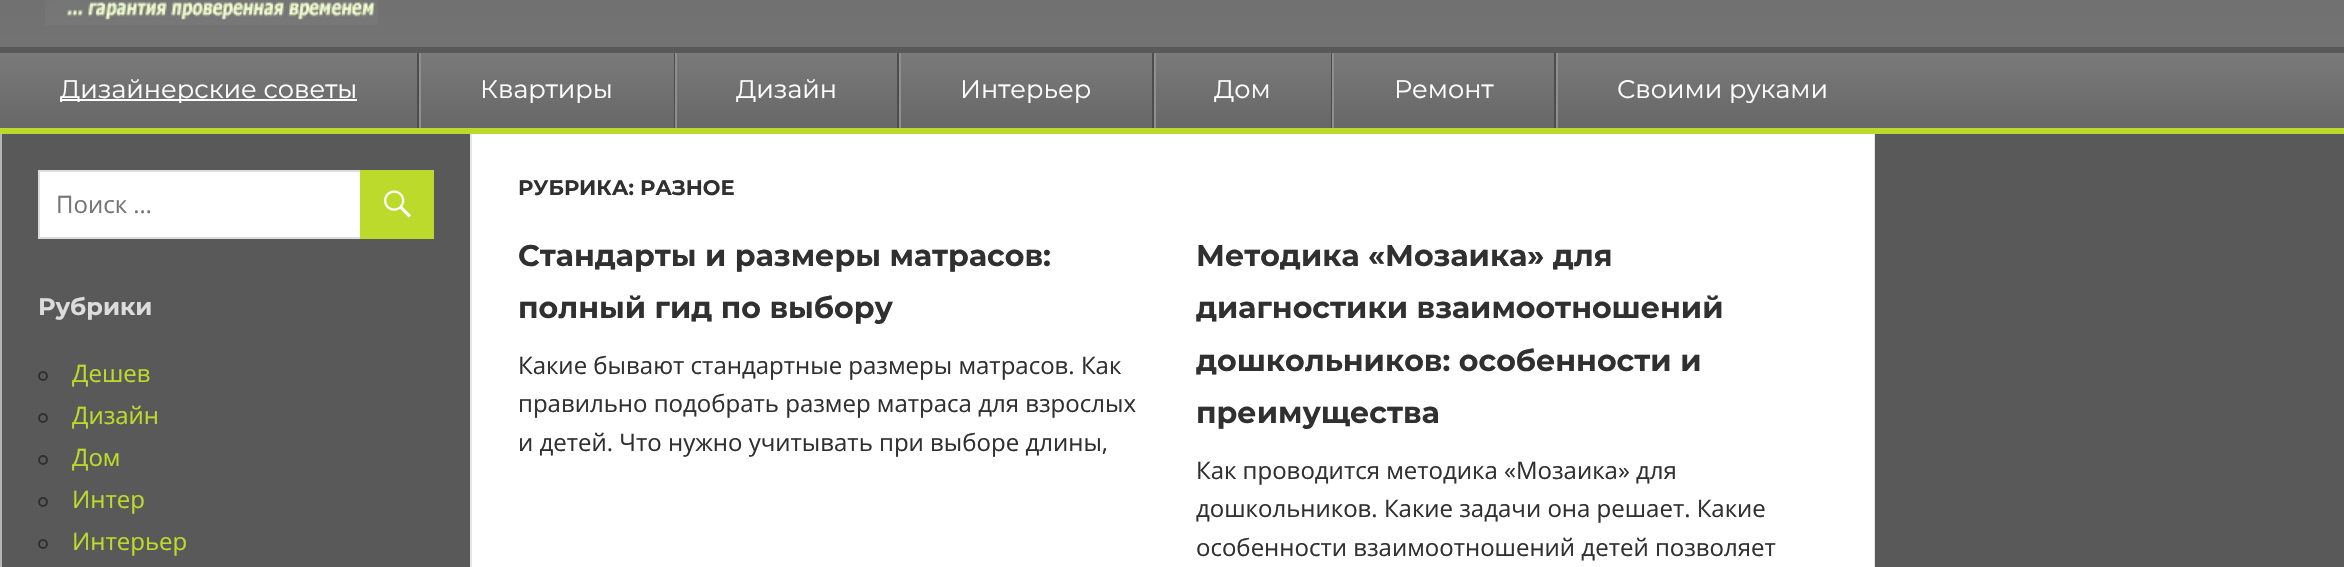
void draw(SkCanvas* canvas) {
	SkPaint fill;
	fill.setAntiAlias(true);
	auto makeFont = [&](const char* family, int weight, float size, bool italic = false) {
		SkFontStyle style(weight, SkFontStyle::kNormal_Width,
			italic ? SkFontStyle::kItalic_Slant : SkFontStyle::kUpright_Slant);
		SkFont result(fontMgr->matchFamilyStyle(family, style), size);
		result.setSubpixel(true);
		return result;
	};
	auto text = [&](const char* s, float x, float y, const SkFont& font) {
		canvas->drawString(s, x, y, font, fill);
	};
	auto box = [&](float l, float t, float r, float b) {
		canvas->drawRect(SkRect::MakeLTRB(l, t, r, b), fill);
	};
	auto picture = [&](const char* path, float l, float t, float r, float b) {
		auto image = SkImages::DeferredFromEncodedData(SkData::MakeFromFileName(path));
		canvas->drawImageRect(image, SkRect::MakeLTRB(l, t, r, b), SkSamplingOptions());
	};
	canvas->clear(0xFFFFFFFF);
	{
		const SkColor colors[] = {0xFF6A6A6A, 0xFF777777};
		const float stops[] = {0, 1};
		const SkPoint ends[] = {{1172, -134}, {1172, 128}};
		fill.setShader(SkGradientShader::MakeLinear(ends, colors, stops, 2, SkTileMode::kClamp));
		fill.setAlpha(255);
	}
	box(0, 0, 2344, 47);
	fill.setShader(nullptr);
	fill.setColor(0xFFBCDA2B);
	box(0, 128, 2344, 134);
	picture("image0.png", 45, 0, 378, 25);
	{
		const SkColor colors[] = {0xFF7A7A7A, 0xFF676767};
		const float stops[] = {0, 1};
		const SkPoint ends[] = {{1172, 52}, {1172, 128}};
		fill.setShader(SkGradientShader::MakeLinear(ends, colors, stops, 2, SkTileMode::kClamp));
		fill.setAlpha(255);
	}
	box(0, 53, 2344, 128);
	fill.setShader(nullptr);
	fill.setColor(0xFF595959);
	box(0, 47, 2344, 53);
	fill.setColor(0xFF4D4D4D);
	box(417, 53, 419, 128);
	fill.setColor(0xFFFFFFFF);
	box(60, 99, 357, 101);
	fill.setColor(0xFF4D4D4D);
	box(674, 53, 675, 128);
	fill.setColor(0xFF8F8F8F);
	box(419, 53, 421, 128);
	fill.setColor(0xFF4D4D4D);
	box(897, 53, 899, 128);
	fill.setColor(0xFF8F8F8F);
	box(675, 53, 677, 128);
	fill.setColor(0xFF4D4D4D);
	box(1152, 53, 1154, 128);
	fill.setColor(0xFF8F8F8F);
	box(899, 53, 901, 128);
	fill.setColor(0xFF4D4D4D);
	box(1331, 53, 1332, 128);
	fill.setColor(0xFF8F8F8F);
	box(1154, 53, 1156, 128);
	fill.setColor(0xFF4D4D4D);
	box(1554, 53, 1556, 128);
	fill.setColor(0xFF8F8F8F);
	box(1332, 53, 1334, 128);
	box(1556, 53, 1558, 128);
	fill.setColor(0xFF595959);
	box(2, 134, 470, 567);
	fill.setColor(0xFFB5B5B5);
	box(0, 134, 2, 567);
	fill.setColor(0xFFFFFFFF);
	box(40, 172, 360, 237);
	fill.setColor(0xFFE5E5E5);
	box(470, 134, 472, 567);
	canvas->save();
	canvas->clipRect(SkRect::MakeLTRB(38, 170, 434, 239));
	fill.setStyle(SkPaint::kStroke_Style);
	fill.setStrokeWidth(2);
	fill.setColor(0xFFDDDDDD);
	canvas->drawRect(SkRect::MakeLTRB(39, 171, 487, 238), fill);
	canvas->restore();
	fill.setStyle(SkPaint::kFill_Style);
	fill.setColor(0xFFBCDA2B);
	box(360, 170, 434, 239);
	picture("image1.png", 384, 190, 411, 218);
	fill.setStyle(SkPaint::kStroke_Style);
	fill.setColor(0xFF303030);
	canvas->drawCircle(43, 376, 4, fill);
	canvas->drawCircle(43, 418, 4, fill);
	canvas->drawCircle(43, 460, 4, fill);
	canvas->drawCircle(43, 502, 4, fill);
	canvas->drawCircle(43, 544, 4, fill);
	fill.setStyle(SkPaint::kFill_Style);
	fill.setColor(0xFFE5E5E5);
	box(1874, 134, 1875, 567);
	fill.setColor(0xFF595959);
	box(1875, 134, 2344, 567);
	auto font1 = makeFont("Montserrat", 400, 25.5f);
	fill.setColor(0xFFFFFFFF);
	text("Дизайнерские советы", 60, 98, font1);
	text("Квартиры", 480, 98, font1);
	text("Дизайн", 736, 98, font1);
	text("Интерьер", 960, 98, font1);
	text("Дом", 1214, 98, font1);
	text("Ремонт", 1394, 98, font1);
	text("Своими руками", 1617, 98, font1);
	auto font2 = makeFont("Open Sans", 400, 24);
	fill.setColor(0xFF757575);
	text("Поиск …", 56, 213, font2);
	auto font3 = makeFont("Montserrat", 700, 24);
	fill.setColor(0xFFDCDCDC);
	text("Рубрики", 38, 315, font3);
	fill.setColor(0xFFBCDA2B);
	text("Дешев", 72, 382, font2);
	text("Дизайн", 72, 424, font2);
	text("Дом", 72, 466, font2);
	text("Интер", 72, 508, font2);
	text("Интерьер", 72, 550, font2);
	auto font4 = makeFont("Montserrat", 700, 21);
	fill.setColor(0xFF303030);
	text("РУБРИКА: РАЗНОЕ", 518, 195, font4);
	auto font5 = makeFont("Montserrat", 700, 30);
	text("Стандарты и размеры матрасов:", 518, 266, font5);
	text("полный гид по выбору", 518, 318, font5);
	text("Какие бывают стандартные размеры матрасов. Как", 518, 374, font2);
	text("правильно подобрать размер матраса для взрослых", 518, 412, font2);
	text("и детей. Что нужно учитывать при выборе длины,", 518, 451, font2);
	text("Методика «Мозаика» для", 1196, 266, font5);
	text("диагностики взаимоотношений", 1196, 318, font5);
	text("дошкольников: особенности и", 1196, 371, font5);
	text("преимущества", 1196, 423, font5);
	text("Как проводится методика «Мозаика» для", 1196, 479, font2);
	text("дошкольников. Какие задачи она решает. Какие", 1196, 517, font2);
	text("особенности взаимоотношений детей позволяет", 1196, 556, font2);
}
